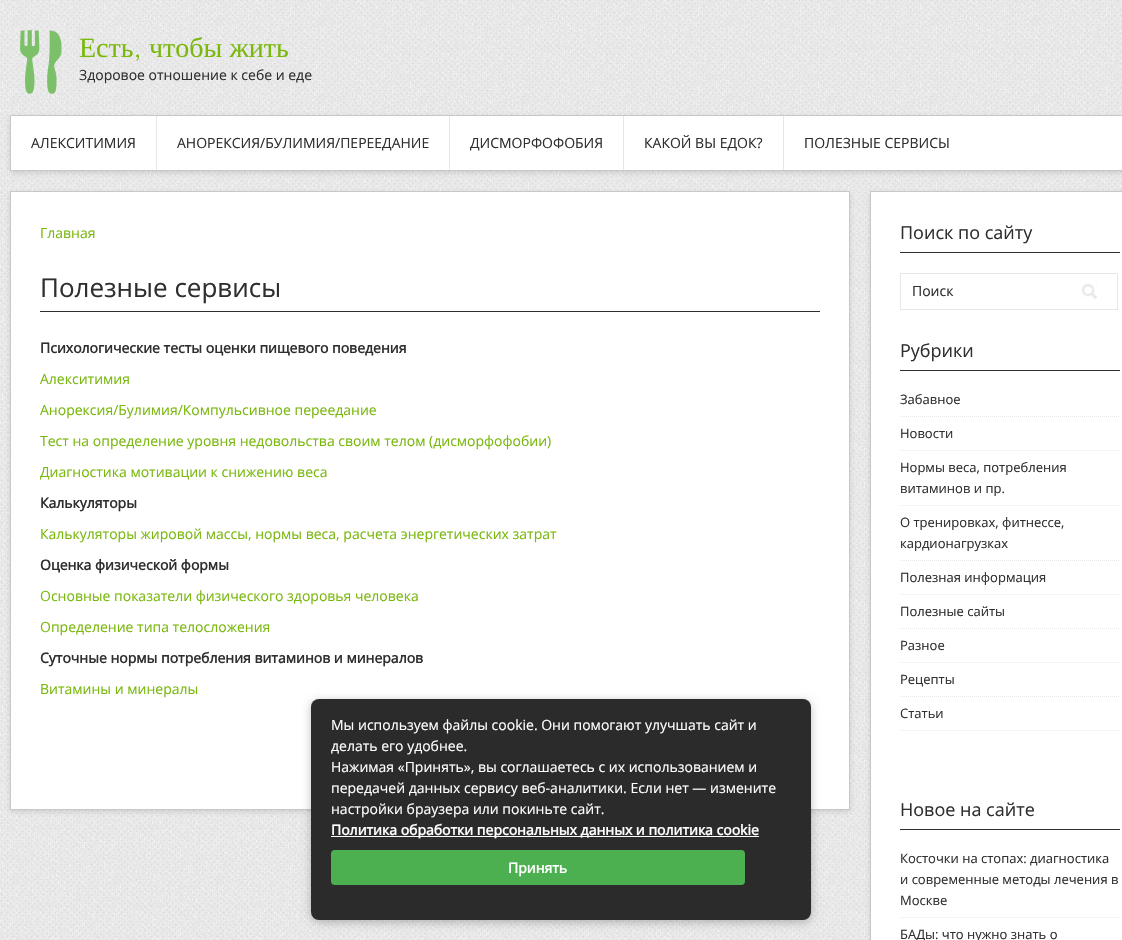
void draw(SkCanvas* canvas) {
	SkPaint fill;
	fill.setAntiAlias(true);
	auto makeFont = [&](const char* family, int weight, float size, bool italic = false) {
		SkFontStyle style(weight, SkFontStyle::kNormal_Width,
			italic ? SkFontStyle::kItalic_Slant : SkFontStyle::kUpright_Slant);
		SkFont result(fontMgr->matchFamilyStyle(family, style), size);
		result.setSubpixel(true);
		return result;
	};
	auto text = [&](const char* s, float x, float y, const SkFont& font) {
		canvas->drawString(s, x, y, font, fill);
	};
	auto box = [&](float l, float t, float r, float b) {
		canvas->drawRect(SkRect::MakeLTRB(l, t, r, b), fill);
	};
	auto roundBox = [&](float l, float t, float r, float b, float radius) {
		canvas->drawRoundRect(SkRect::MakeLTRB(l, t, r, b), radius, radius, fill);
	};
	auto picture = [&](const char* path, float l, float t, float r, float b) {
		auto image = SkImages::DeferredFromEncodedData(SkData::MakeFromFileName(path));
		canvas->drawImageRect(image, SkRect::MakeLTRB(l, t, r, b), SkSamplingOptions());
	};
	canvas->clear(0xFFFFFFFF);
	picture("image0.png", 0, 0, 1122, 940);
	picture("image1.png", 20, 30, 62, 94);
	fill.setColor(0x26323232);
	fill.setMaskFilter(SkMaskFilter::MakeBlur(kNormal_SkBlurStyle, 2.5f));
	canvas->drawRect(SkRect::MakeLTRB(10, 117, 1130, 173), fill);
	fill.setMaskFilter(nullptr);
	fill.setColor(0xFFFFFFFF);
	canvas->drawRect(SkRect::MakeLTRB(10.5f, 115.5f, 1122.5f, 170.5f), fill);
	fill.setStyle(SkPaint::kStroke_Style);
	fill.setStrokeWidth(1);
	fill.setColor(0xFFC8C8C8);
	canvas->drawRect(SkRect::MakeLTRB(10.5f, 115.5f, 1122.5f, 170.5f), fill);
	fill.setStyle(SkPaint::kFill_Style);
	fill.setColor(0xFFE7E7E7);
	box(156, 116, 157, 170);
	box(449, 116, 450, 170);
	box(623, 116, 624, 170);
	box(783, 116, 784, 170);
	fill.setColor(0x26323232);
	fill.setMaskFilter(SkMaskFilter::MakeBlur(kNormal_SkBlurStyle, 2.5f));
	canvas->drawRect(SkRect::MakeLTRB(10, 193, 850, 812), fill);
	fill.setMaskFilter(nullptr);
	fill.setColor(0xFFFFFFFF);
	canvas->drawRect(SkRect::MakeLTRB(10.5f, 191.5f, 849.5f, 809.5f), fill);
	fill.setStyle(SkPaint::kStroke_Style);
	fill.setColor(0xFFC8C8C8);
	canvas->drawRect(SkRect::MakeLTRB(10.5f, 191.5f, 849.5f, 809.5f), fill);
	fill.setStyle(SkPaint::kFill_Style);
	fill.setColor(0xFF2F2F2F);
	box(40, 311, 820, 312);
	fill.setColor(0x26323232);
	fill.setMaskFilter(SkMaskFilter::MakeBlur(kNormal_SkBlurStyle, 2.5f));
	canvas->drawRect(SkRect::MakeLTRB(870, 193, 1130, 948), fill);
	fill.setMaskFilter(nullptr);
	fill.setColor(0xFFFFFFFF);
	canvas->drawRect(SkRect::MakeLTRB(870.5f, 191.5f, 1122.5f, 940.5f), fill);
	fill.setStyle(SkPaint::kStroke_Style);
	fill.setColor(0xFFC8C8C8);
	canvas->drawRect(SkRect::MakeLTRB(870.5f, 191.5f, 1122.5f, 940.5f), fill);
	fill.setStyle(SkPaint::kFill_Style);
	fill.setColor(0xFF2F2F2F);
	box(900, 252, 1120, 253);
	fill.setStyle(SkPaint::kStroke_Style);
	fill.setColor(0xFFE7E7E7);
	canvas->drawRect(SkRect::MakeLTRB(900.5f, 273.5f, 1117.5f, 309.5f), fill);
	picture("image2.png", 1081, 283, 1097, 299);
	fill.setStyle(SkPaint::kFill_Style);
	fill.setColor(0xFF2F2F2F);
	box(900, 370, 1120, 371);
	fill.setStyle(SkPaint::kStroke_Style);
	fill.setColor(0xFFE7E7E7);
	fill.setPathEffect(SkDashPathEffect::Make({{1, 1}}, 0));
	canvas->drawPath(SkPathBuilder().moveTo(900, 416.5f).lineTo(1120, 416.5f).detach(), fill);
	fill.setPathEffect(nullptr);
	fill.setPathEffect(SkDashPathEffect::Make({{1, 1}}, 0));
	canvas->drawPath(SkPathBuilder().moveTo(900, 450.5f).lineTo(1120, 450.5f).detach(), fill);
	fill.setPathEffect(nullptr);
	fill.setPathEffect(SkDashPathEffect::Make({{1, 1}}, 0));
	canvas->drawPath(SkPathBuilder().moveTo(900, 505.5f).lineTo(1120, 505.5f).detach(), fill);
	fill.setPathEffect(nullptr);
	fill.setPathEffect(SkDashPathEffect::Make({{1, 1}}, 0));
	canvas->drawPath(SkPathBuilder().moveTo(900, 560.5f).lineTo(1120, 560.5f).detach(), fill);
	fill.setPathEffect(nullptr);
	fill.setPathEffect(SkDashPathEffect::Make({{1, 1}}, 0));
	canvas->drawPath(SkPathBuilder().moveTo(900, 594.5f).lineTo(1120, 594.5f).detach(), fill);
	fill.setPathEffect(nullptr);
	fill.setPathEffect(SkDashPathEffect::Make({{1, 1}}, 0));
	canvas->drawPath(SkPathBuilder().moveTo(900, 628.5f).lineTo(1120, 628.5f).detach(), fill);
	fill.setPathEffect(nullptr);
	fill.setPathEffect(SkDashPathEffect::Make({{1, 1}}, 0));
	canvas->drawPath(SkPathBuilder().moveTo(900, 662.5f).lineTo(1120, 662.5f).detach(), fill);
	fill.setPathEffect(nullptr);
	fill.setPathEffect(SkDashPathEffect::Make({{1, 1}}, 0));
	canvas->drawPath(SkPathBuilder().moveTo(900, 696.5f).lineTo(1120, 696.5f).detach(), fill);
	fill.setPathEffect(nullptr);
	fill.setPathEffect(SkDashPathEffect::Make({{1, 1}}, 0));
	canvas->drawPath(SkPathBuilder().moveTo(900, 730.5f).lineTo(1120, 730.5f).detach(), fill);
	fill.setPathEffect(nullptr);
	fill.setStyle(SkPaint::kFill_Style);
	fill.setColor(0xFF2F2F2F);
	box(900, 829, 1120, 830);
	fill.setStyle(SkPaint::kStroke_Style);
	fill.setColor(0xFFE7E7E7);
	fill.setPathEffect(SkDashPathEffect::Make({{1, 1}}, 0));
	canvas->drawPath(SkPathBuilder().moveTo(900, 917.5f).lineTo(1120, 917.5f).detach(), fill);
	fill.setPathEffect(nullptr);
	fill.setStyle(SkPaint::kFill_Style);
	fill.setColor(0x40000000);
	fill.setMaskFilter(SkMaskFilter::MakeBlur(kNormal_SkBlurStyle, 5));
	canvas->drawRoundRect(SkRect::MakeLTRB(311, 701, 811, 922), 8, 8, fill);
	fill.setMaskFilter(nullptr);
	fill.setColor(0xFF2B2B2B);
	roundBox(311, 699, 811, 920, 8);
	fill.setColor(0xFFFEFEFE);
	box(331, 836, 759, 837);
	fill.setColor(0xFF4CAF50);
	roundBox(331, 850, 745, 885, 4);
	auto font1 = makeFont("Liberation Serif", 400, 28);
	fill.setColor(0xFF7AB80E);
	text("Есть", 79, 57, font1);
	auto font2 = makeFont("Nixie One", 400, 28);
	text(",", 134, 57, font2);
	text("чтобы жить", 149, 57, font1);
	auto font3 = makeFont("Open Sans", 400, 14);
	fill.setColor(0xFF2F2F2F);
	text("Здоровое отношение к себе и еде", 79, 80, font3);
	text("АЛЕКСИТИМИЯ", 31, 148, font3);
	text("АНОРЕКСИЯ/БУЛИМИЯ/ПЕРЕЕДАНИЕ", 177, 148, font3);
	text("ДИСМОРФОФОБИЯ", 470, 148, font3);
	text("КАКОЙ ВЫ ЕДОК?", 644, 148, font3);
	text("ПОЛЕЗНЫЕ СЕРВИСЫ", 804, 148, font3);
	fill.setColor(0xFF7AB80E);
	text("Главная", 40, 238, font3);
	auto font4 = makeFont("Open Sans", 400, 26);
	fill.setColor(0xFF2F2F2F);
	text("Полезные сервисы", 40, 297, font4);
	auto font5 = makeFont("Open Sans", 700, 14);
	text("Психологические тесты оценки пищевого поведения", 40, 353, font5);
	fill.setColor(0xFF7AB80E);
	text("Алекситимия", 40, 384, font3);
	text("Анорексия/Булимия/Компульсивное переедание", 40, 415, font3);
	text("Тест на определение уровня недовольства своим телом (дисморфофобии)", 40, 446, font3);
	text("Диагностика мотивации к снижению веса", 40, 477, font3);
	fill.setColor(0xFF2F2F2F);
	text("Калькуляторы", 40, 508, font5);
	fill.setColor(0xFF7AB80E);
	text("Калькуляторы жировой массы, нормы веса, расчета энергетических затрат", 40, 539, font3);
	fill.setColor(0xFF2F2F2F);
	text("Оценка физической формы", 40, 570, font5);
	fill.setColor(0xFF7AB80E);
	text("Основные показатели физического здоровья человека", 40, 601, font3);
	text("Определение типа телосложения", 40, 632, font3);
	fill.setColor(0xFF2F2F2F);
	text("Суточные нормы потребления витаминов и минералов", 40, 663, font5);
	fill.setColor(0xFF7AB80E);
	text("Витамины и минералы", 40, 694, font3);
	auto font6 = makeFont("Open Sans", 400, 18);
	fill.setColor(0xFF2F2F2F);
	text("Поиск по сайту", 900, 239, font6);
	text("Поиск", 912, 296, font3);
	text("Рубрики", 900, 357, font6);
	auto font7 = makeFont("Open Sans", 400, 13);
	text("Забавное", 900, 404, font7);
	text("Новости", 900, 438, font7);
	text("Нормы веса, потребления", 900, 472, font7);
	text("витаминов и пр.", 900, 493, font7);
	text("О тренировках, фитнессе,", 900, 527, font7);
	text("кардионагрузках", 900, 548, font7);
	text("Полезная информация", 900, 582, font7);
	text("Полезные сайты", 900, 616, font7);
	text("Разное", 900, 650, font7);
	text("Рецепты", 900, 684, font7);
	text("Статьи", 900, 718, font7);
	text("Новое на сайте", 900, 816, font6);
	text("Косточки на стопах: диагностика", 900, 863, font7);
	text("и современные методы лечения в", 900, 884, font7);
	text("Москве", 900, 905, font7);
	text("БАДы: что нужно знать о", 900, 939, font7);
	fill.setColor(0xFFFFFFFF);
	text("Мы используем файлы cookie. Они помогают улучшать сайт и", 331, 730, font3);
	text("делать его удобнее.", 331, 751, font3);
	text("Нажимая «Принять», вы соглашаетесь с их использованием и", 331, 772, font3);
	text("передачей данных сервису веб-аналитики. Если нет — измените", 331, 793, font3);
	text("настройки браузера или покиньте сайт.", 331, 814, font3);
	text("Политика обработки персональных данных и политика cookie", 331, 835, font5);
	text("Принять", 508, 873, font5);
}
